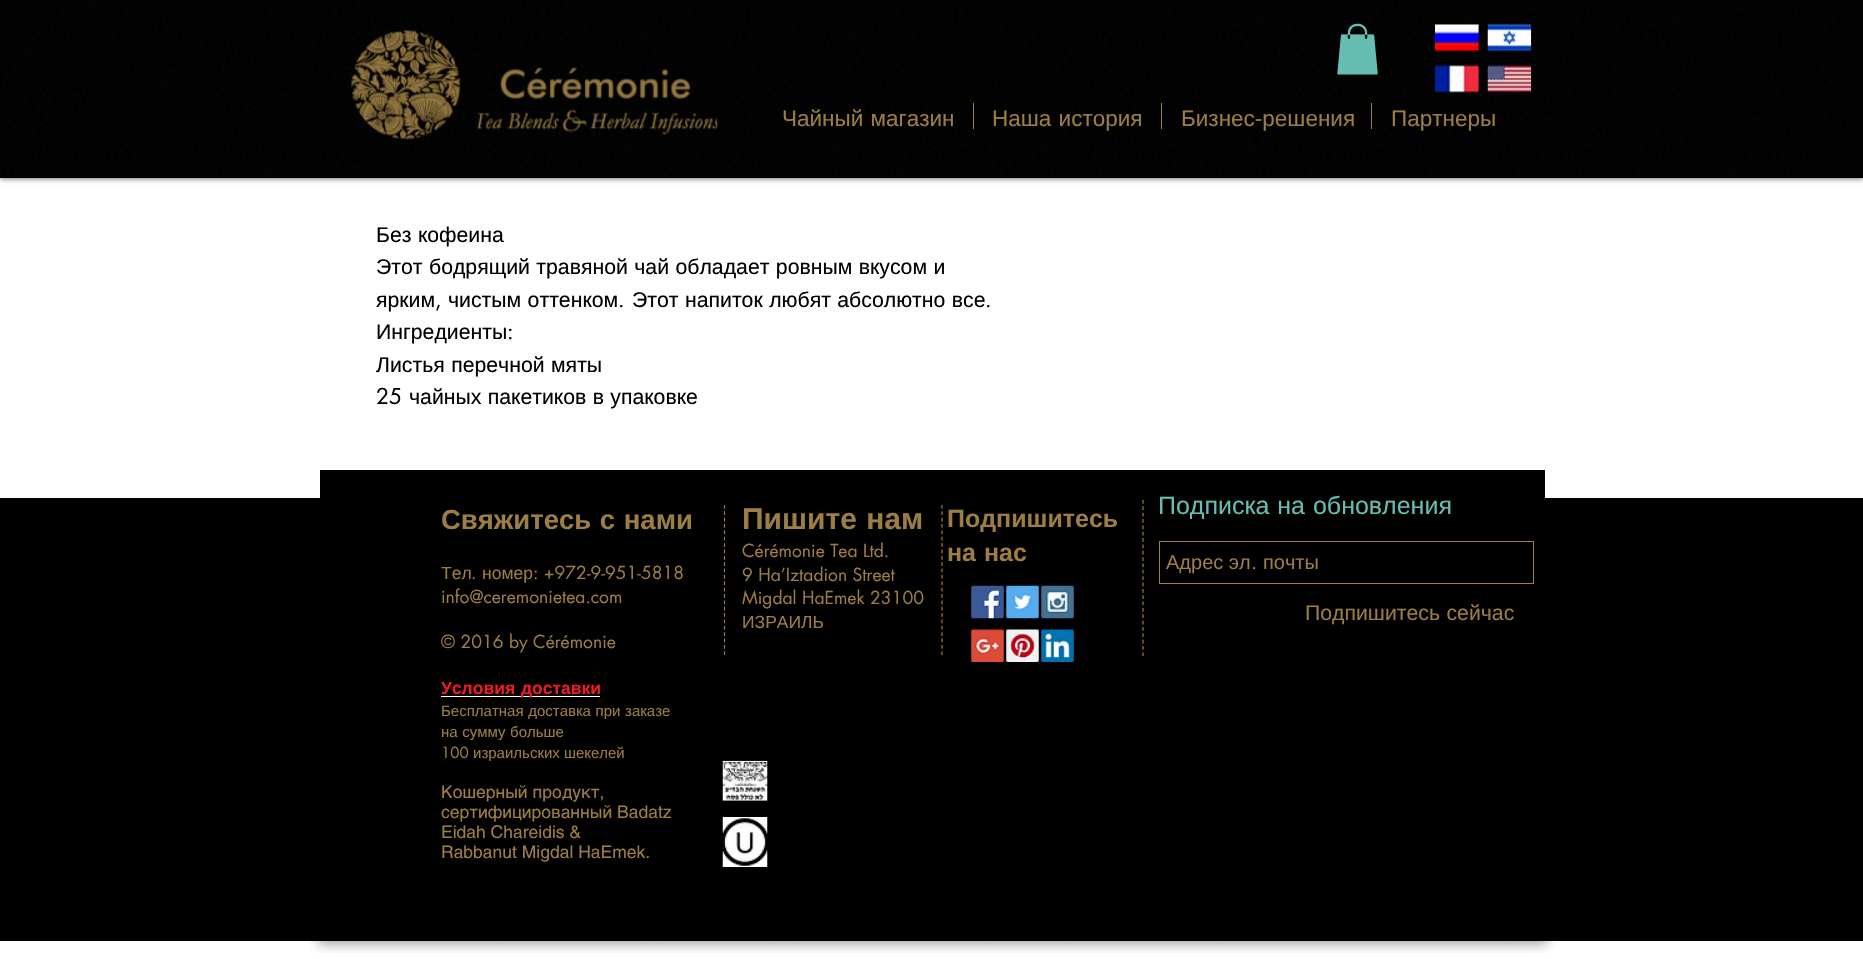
void draw(SkCanvas* canvas) {
	SkPaint fill;
	fill.setAntiAlias(true);
	auto makeFont = [&](const char* family, int weight, float size, bool italic = false) {
		SkFontStyle style(weight, SkFontStyle::kNormal_Width,
			italic ? SkFontStyle::kItalic_Slant : SkFontStyle::kUpright_Slant);
		SkFont result(fontMgr->matchFamilyStyle(family, style), size);
		result.setSubpixel(true);
		return result;
	};
	auto text = [&](const char* s, float x, float y, const SkFont& font) {
		canvas->drawString(s, x, y, font, fill);
	};
	auto spacedText = [&](const char* s, float x, float y, const SkFont& font, const SkPaint& ink, float letter, float word) {
		std::vector<SkGlyphID> glyphs(font.countText(s, strlen(s), SkTextEncoding::kUTF8));
		std::vector<float> xs(glyphs.size());
		font.textToGlyphs(s, strlen(s), SkTextEncoding::kUTF8, glyphs);
		font.getXPos(glyphs, xs, x);
		float extra = 0;
		for (size_t i = 0; i < glyphs.size(); i++) {
			xs[i] += extra;
			extra += letter + word * (glyphs[i] == font.unicharToGlyph(' '));
		}
		canvas->drawTextBlob(SkTextBlob::MakeFromPosHGlyphs(glyphs, xs, y, font), 0, 0, ink);
	};
	auto box = [&](float l, float t, float r, float b) {
		canvas->drawRect(SkRect::MakeLTRB(l, t, r, b), fill);
	};
	auto picture = [&](const char* path, float l, float t, float r, float b) {
		auto image = SkImages::DeferredFromEncodedData(SkData::MakeFromFileName(path));
		canvas->drawImageRect(image, SkRect::MakeLTRB(l, t, r, b), SkSamplingOptions());
	};
	canvas->clear(0xFFFFFFFF);
	fill.setColor(0xB3000000);
	fill.setMaskFilter(SkMaskFilter::MakeBlur(kNormal_SkBlurStyle, 3));
	canvas->drawRect(SkRect::MakeLTRB(0, 0, 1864, 178), fill);
	fill.setMaskFilter(nullptr);
	fill.setColor(0xFF000000);
	box(0, 0, 1863, 178);
	picture("image0.png", 0, 0, 1863, 177);
	picture("image1.png", 351, 29, 461, 140);
	picture("image2.png", 1337, 23, 1378, 75);
	picture("image3.png", 1435, 24, 1479, 52);
	picture("image4.png", 1487, 24, 1532, 52);
	picture("image5.png", 477, 67, 718, 136);
	picture("image6.png", 1435, 65, 1479, 93);
	picture("image7.png", 1487, 65, 1532, 93);
	fill.setColor(0xFF9C7D44);
	box(973, 103, 974, 129);
	box(1161, 103, 1162, 129);
	box(1371, 103, 1372, 129);
	fill.setColor(0xFF000000);
	box(320, 470, 1545, 498);
	picture("image8.png", 309, 941, 364, 953);
	picture("image9.png", 363, 941, 1502, 953);
	picture("image10.png", 1501, 941, 1556, 953);
	box(0, 498, 1863, 941);
	fill.setColor(0xFFFFFFFF);
	box(441, 696, 600, 697);
	fill.setStyle(SkPaint::kStroke_Style);
	fill.setStrokeWidth(1.2f);
	fill.setColor(0xFF9C7D44);
	fill.setPathEffect(SkDashPathEffect::Make({{3.75f, 2.6f}}, 0));
	canvas->drawPath(SkPathBuilder().moveTo(1143, 500).lineTo(1143, 656).detach(), fill);
	fill.setPathEffect(nullptr);
	fill.setStrokeWidth(1);
	canvas->drawRect(SkRect::MakeLTRB(1159.5f, 541.5f, 1533.5f, 583.5f), fill);
	picture("image11.png", 971, 585, 1004, 619);
	picture("image12.png", 1006, 585, 1039, 619);
	picture("image13.png", 1041, 585, 1074, 619);
	picture("image14.png", 971, 629, 1004, 662);
	picture("image15.png", 1006, 629, 1039, 662);
	picture("image16.png", 1041, 629, 1074, 662);
	picture("image17.png", 722, 760, 768, 801);
	picture("image18.png", 722, 817, 768, 867);
	fill.setStrokeWidth(1.2f);
	fill.setPathEffect(SkDashPathEffect::Make({{3.75f, 2.61f}}, 0));
	canvas->drawPath(SkPathBuilder().moveTo(724.5f, 505).lineTo(724.5f, 655).detach(), fill);
	fill.setPathEffect(nullptr);
	fill.setPathEffect(SkDashPathEffect::Make({{3.75f, 2.61f}}, 0));
	canvas->drawPath(SkPathBuilder().moveTo(942, 505).lineTo(942, 655).detach(), fill);
	fill.setPathEffect(nullptr);
	auto font1 = makeFont("Liberation Sans", 400, 22.5f);
	fill.setStyle(SkPaint::kFill_Style);
	spacedText("Чайный магазин", 782, 126, font1, fill, 0, 1);
	spacedText("Наша история", 992, 126, font1, fill, 0, 1);
	text("Бизнес-решения", 1181, 126, font1);
	text("Партнеры", 1391, 126, font1);
	auto font2 = makeFont("Liberation Sans", 400, 21.25f);
	fill.setColor(0xFF000000);
	spacedText("Без кофеина", 376, 242, font2, fill, 0, 0.5f);
	spacedText("Этот бодрящий травяной чай обладает ровным вкусом и", 376, 274, font2, fill, 0, 0.5f);
	text("ярким", 376, 307, font2);
	auto font3 = makeFont("futura", 400, 21.25f);
	text(",", 435, 307, font3);
	spacedText("чистым оттенком", 448, 307, font2, fill, 0, 0.5f);
	text(".", 618, 307, font3);
	spacedText("Этот напиток любят абсолютно все", 632, 307, font2, fill, 0, 0.5f);
	text(".", 985, 307, font3);
	text("Ингредиенты", 376, 339, font2);
	text(":", 507, 339, font3);
	spacedText("Листья перечной мяты", 376, 372, font2, fill, 0, 0.5f);
	text("25", 376, 404, font3);
	spacedText("чайных пакетиков в упаковке", 409, 404, font2, fill, 0, 0.5f);
	auto font4 = makeFont("Liberation Sans", 700, 27.5f);
	fill.setColor(0xFF9C7D44);
	spacedText("Свяжитесь с нами", 441, 529, font4, fill, 0, 1);
	auto font5 = makeFont("Liberation Sans", 400, 17.5f);
	text("Тел", 441, 579, font5);
	auto font6 = makeFont("futura", 400, 17.5f);
	text(".", 471, 579, font6);
	text("номер", 482, 579, font5);
	text(": +972-9-951-5818", 533, 579, font6);
	text("info@ceremonietea.com", 441, 603, font6);
	text("© 2016 by Cérémonie", 441, 648, font6);
	auto font7 = makeFont("Liberation Sans", 700, 17.5f);
	fill.setColor(0xFFED1C24);
	spacedText("Условия доставки", 441, 694, font7, fill, 0, 1);
	auto font8 = makeFont("Liberation Sans", 400, 15);
	fill.setColor(0xFF9C7D44);
	spacedText("Бесплатная доставка при заказе", 441, 716, font8, fill, 0, 0.5f);
	spacedText("на сумму больше", 441, 737, font8, fill, 0, 0.5f);
	auto font9 = makeFont("futura", 400, 15);
	text("100", 441, 758, font9);
	text("израильских шекелей", 473, 758, font8);
	auto font10 = makeFont("helvetica", 400, 17.5f);
	text("Кошерный продукт,", 441, 798, font10);
	text("сертифицированный Badatz", 441, 818, font10);
	text("Eidah Chareidis &", 441, 838, font10);
	text("Rabbanut Migdal HaEmek.", 441, 858, font10);
	auto font11 = makeFont("Liberation Sans", 700, 25);
	text("Подпишитесь", 947, 527, font11);
	spacedText("на нас", 947, 561, font11, fill, 0, 1);
	auto font12 = makeFont("Liberation Sans", 400, 25);
	fill.setColor(0xFF66BDB1);
	spacedText("Подписка на обновления", 1158, 514, font12, fill, 0, 1);
	auto font13 = makeFont("Liberation Sans", 400, 20);
	fill.setColor(0xFF9C7D44);
	text("Адрес эл", 1166, 569, font13);
	auto font14 = makeFont("futura", 400, 20);
	text(".", 1251, 569, font14);
	text("почты", 1263, 569, font13);
	spacedText("Подпишитесь сейчас", 1305, 620, font2, fill, 0, 0.5f);
	auto font15 = makeFont("Liberation Sans", 700, 30);
	spacedText("Пишите нам", 742, 529, font15, fill, 0, 1);
	text("Cérémonie Tea Ltd.", 742, 557, font6);
	text("9 Ha’Iztadion Street", 742, 581, font6);
	text("Migdal HaEmek 23100", 742, 604, font6);
	text("ИЗРАИЛЬ", 742, 628, font5);
}
